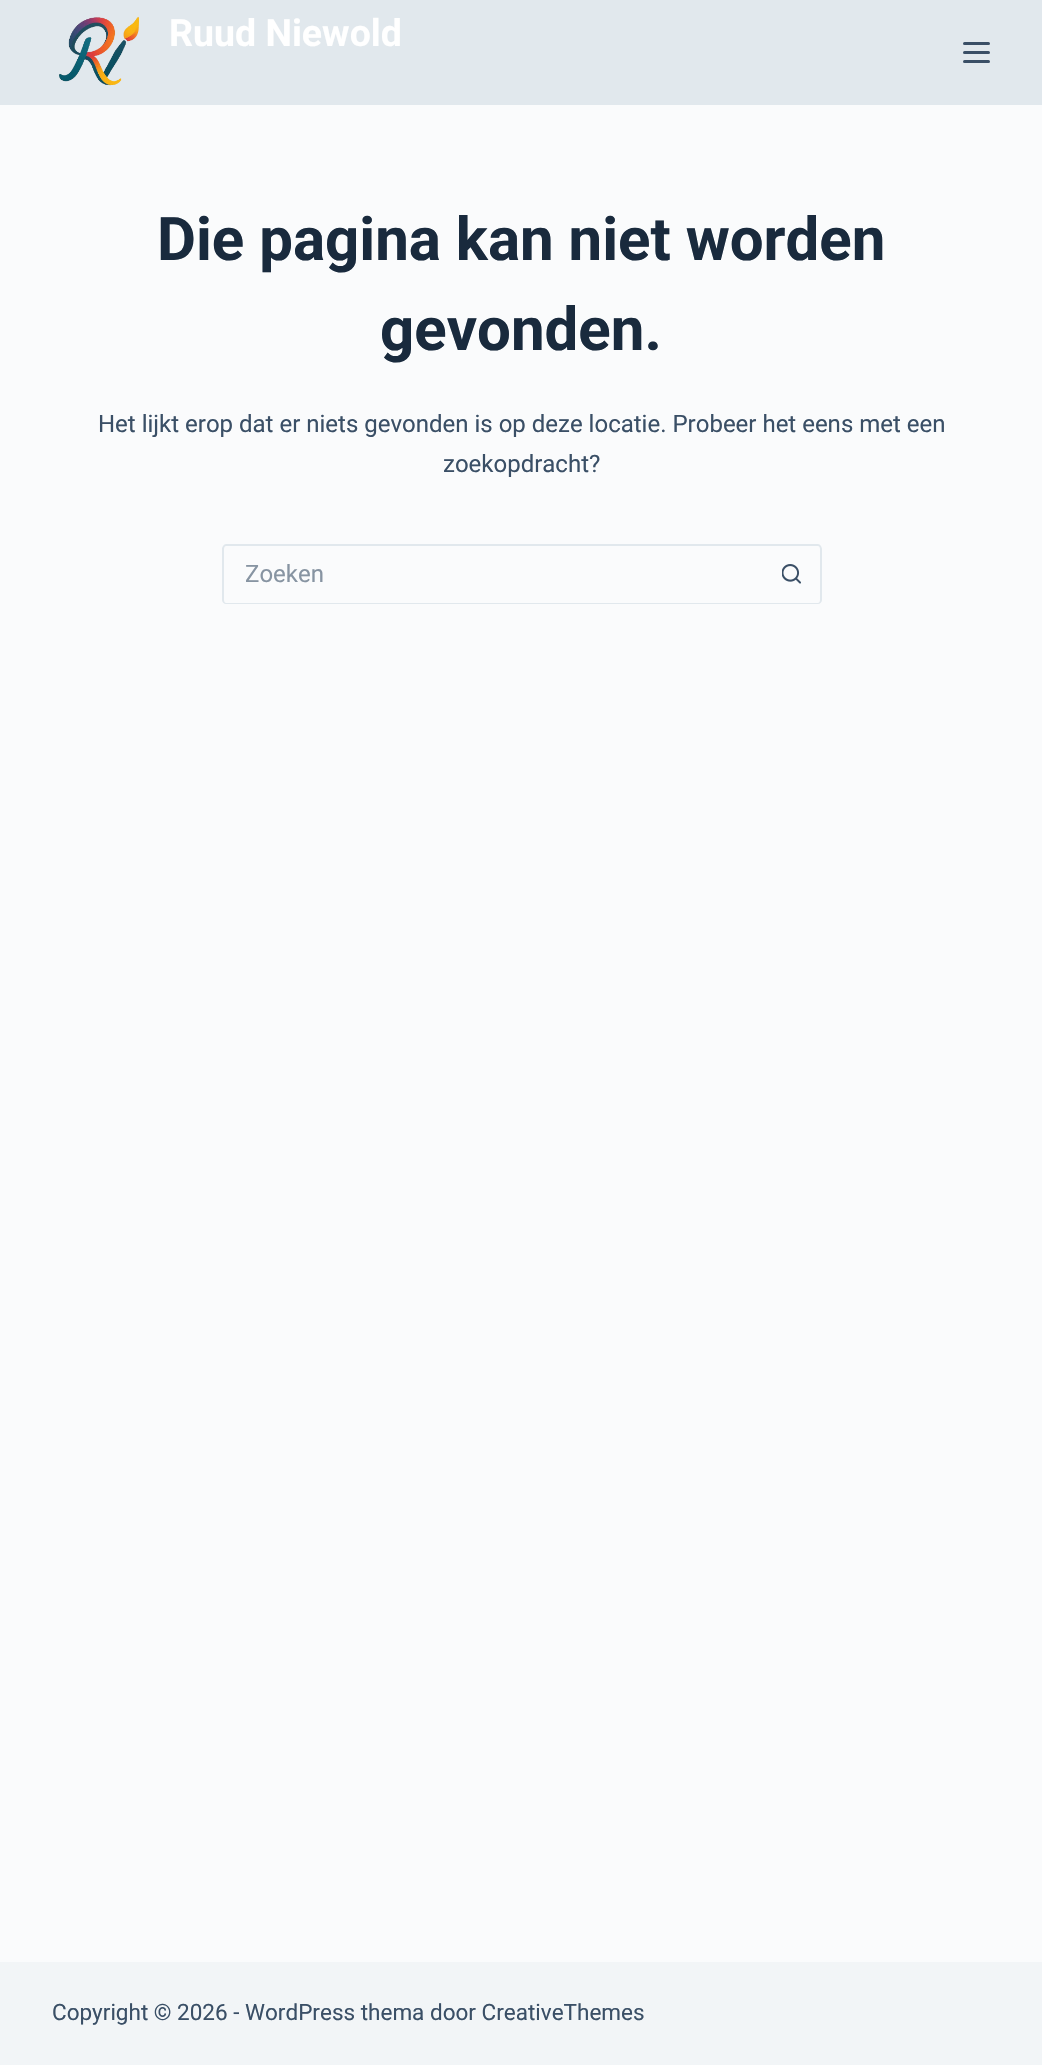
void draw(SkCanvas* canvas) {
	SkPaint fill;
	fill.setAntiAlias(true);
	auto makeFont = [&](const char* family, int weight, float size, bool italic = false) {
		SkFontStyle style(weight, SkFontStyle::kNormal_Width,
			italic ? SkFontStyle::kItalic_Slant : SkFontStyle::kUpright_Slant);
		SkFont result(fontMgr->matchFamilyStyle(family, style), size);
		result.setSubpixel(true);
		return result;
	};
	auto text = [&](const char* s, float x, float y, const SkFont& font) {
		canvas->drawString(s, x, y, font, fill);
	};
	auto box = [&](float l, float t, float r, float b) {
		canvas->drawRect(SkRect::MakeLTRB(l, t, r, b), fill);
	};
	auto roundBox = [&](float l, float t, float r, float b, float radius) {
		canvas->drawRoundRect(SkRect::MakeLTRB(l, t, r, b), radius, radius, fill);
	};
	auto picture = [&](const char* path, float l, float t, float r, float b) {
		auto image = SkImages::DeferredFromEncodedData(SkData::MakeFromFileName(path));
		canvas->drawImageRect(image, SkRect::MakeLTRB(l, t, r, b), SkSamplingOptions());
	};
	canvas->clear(0xFFFAFBFC);
	fill.setColor(0xFFE1E8ED);
	box(0, 0, 1042, 105);
	picture("image0.png", 59, 16, 139, 86);
	fill.setColor(0xFF3A4F66);
	roundBox(963, 42, 990, 45, 1.5f);
	roundBox(963, 51, 990, 54, 1.5f);
	roundBox(963, 60, 990, 63, 1.5f);
	fill.setColor(0xFFE1E8ED);
	canvas->drawPath(SkPathBuilder(SkPathFillType::kEvenOdd).moveTo(226, 544).lineTo(762, 544).lineTo(762, 604).lineTo(226, 604).cubicTo(224, 604, 222, 602, 222, 600).lineTo(222, 549).cubicTo(222, 547, 224, 544, 226, 544).close().moveTo(226, 546).lineTo(762, 546).lineTo(762, 603).lineTo(226, 603).cubicTo(225, 603, 224, 602, 224, 600).lineTo(224, 549).cubicTo(224, 547, 225, 546, 226, 546).close().detach(), fill);
	canvas->drawPath(SkPathBuilder(SkPathFillType::kEvenOdd).moveTo(762, 544).lineTo(818, 544).cubicTo(820, 544, 822, 547, 822, 549).lineTo(822, 600).cubicTo(822, 602, 820, 604, 818, 604).lineTo(762, 604).close().moveTo(762, 546).lineTo(818, 546).cubicTo(819, 546, 820, 547, 820, 549).lineTo(820, 600).cubicTo(820, 602, 819, 603, 818, 603).lineTo(762, 603).close().detach(), fill);
	picture("image1.png", 782, 564, 801, 584);
	fill.setColor(0xFFF2F5F7);
	box(0, 1962, 1042, 2065);
	auto font1 = makeFont("Roboto", 700, 37.5f);
	fill.setColor(0xFFFFFFFF);
	text("Ruud Niewold", 169, 46, font1);
	auto font2 = makeFont("Roboto", 700, 60);
	fill.setColor(0xFF192A3D);
	text("Die pagina kan niet worden", 157, 260, font2);
	text("gevonden.", 380, 350, font2);
	auto font3 = makeFont("Roboto", 400, 24);
	fill.setColor(0xFF3A4F66);
	text("Het lijkt erop dat er niets gevonden is op deze locatie. Probeer het eens met een", 98, 432, font3);
	text("zoekopdracht?", 443, 472, font3);
	fill.setColor(0xFF8794A2);
	text("Zoeken", 245, 582, font3);
	auto font4 = makeFont("Roboto", 400, 22.5f);
	fill.setColor(0xFF3A4F66);
	text("Copyright © 2026 - WordPress thema door CreativeThemes", 52, 2020, font4);
}
